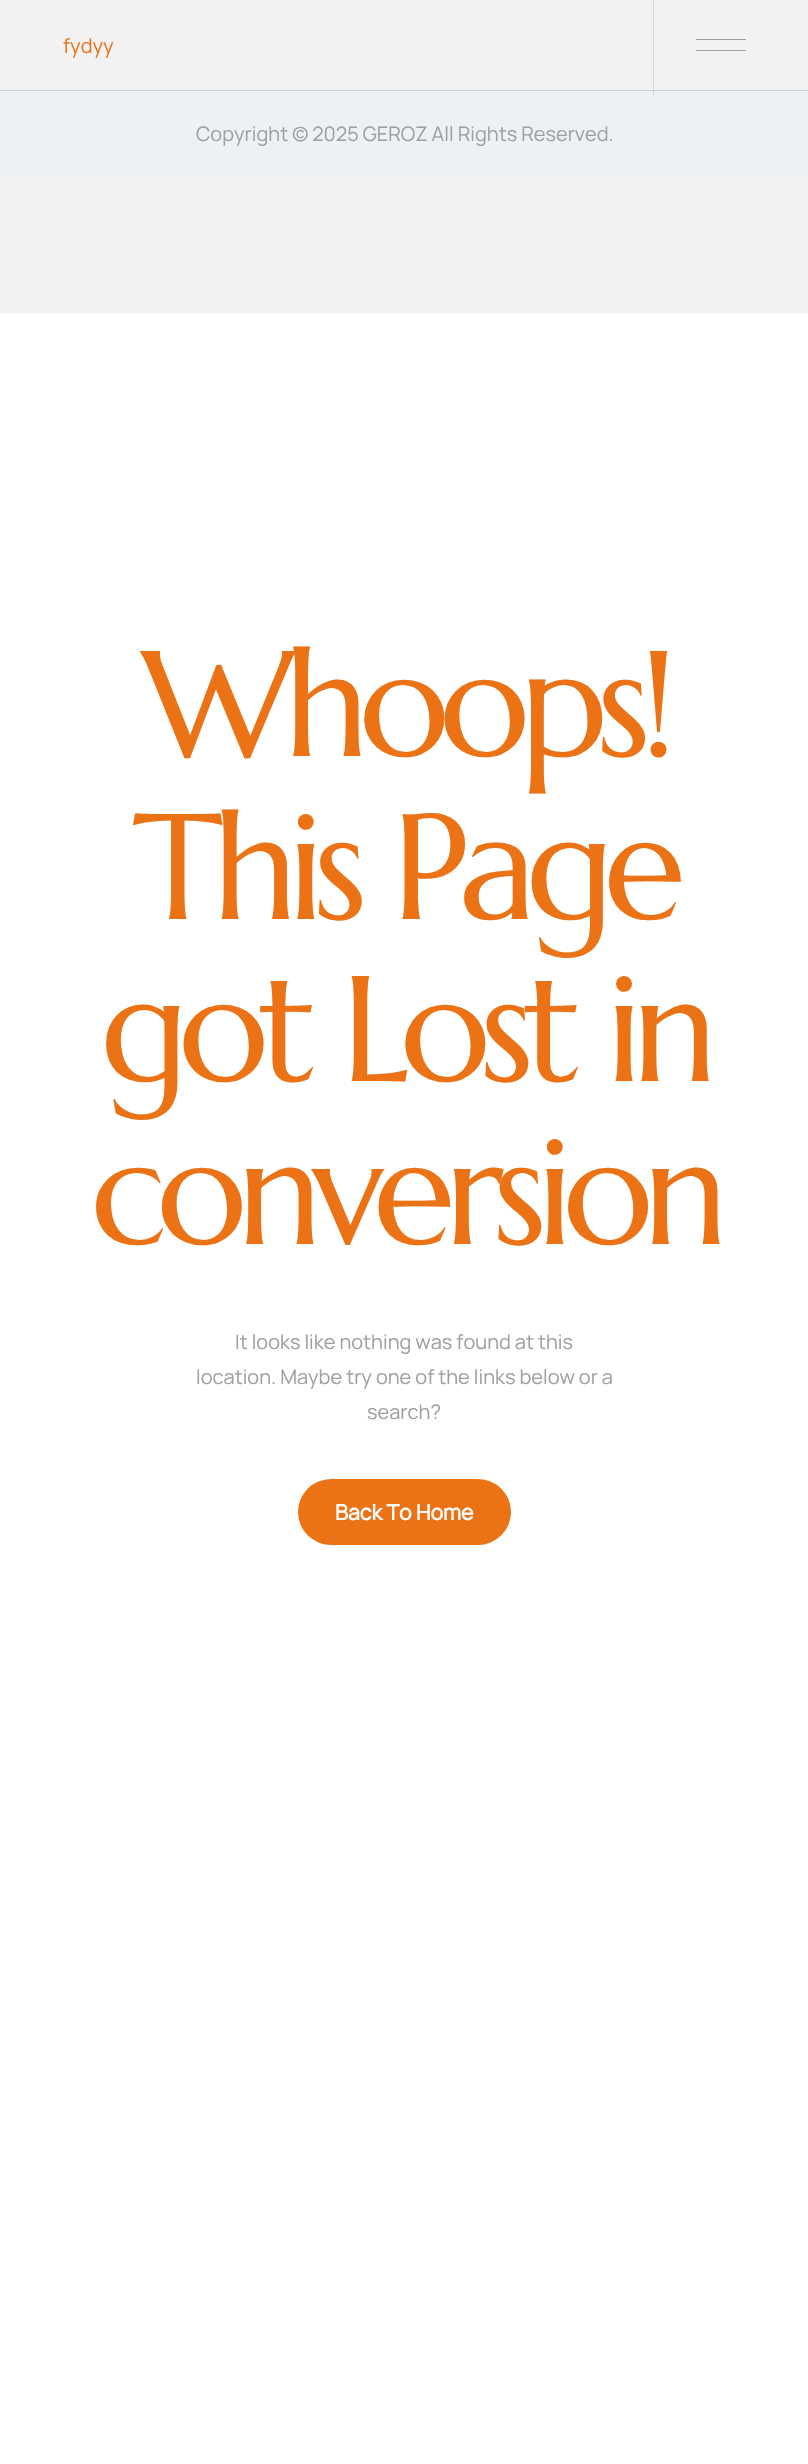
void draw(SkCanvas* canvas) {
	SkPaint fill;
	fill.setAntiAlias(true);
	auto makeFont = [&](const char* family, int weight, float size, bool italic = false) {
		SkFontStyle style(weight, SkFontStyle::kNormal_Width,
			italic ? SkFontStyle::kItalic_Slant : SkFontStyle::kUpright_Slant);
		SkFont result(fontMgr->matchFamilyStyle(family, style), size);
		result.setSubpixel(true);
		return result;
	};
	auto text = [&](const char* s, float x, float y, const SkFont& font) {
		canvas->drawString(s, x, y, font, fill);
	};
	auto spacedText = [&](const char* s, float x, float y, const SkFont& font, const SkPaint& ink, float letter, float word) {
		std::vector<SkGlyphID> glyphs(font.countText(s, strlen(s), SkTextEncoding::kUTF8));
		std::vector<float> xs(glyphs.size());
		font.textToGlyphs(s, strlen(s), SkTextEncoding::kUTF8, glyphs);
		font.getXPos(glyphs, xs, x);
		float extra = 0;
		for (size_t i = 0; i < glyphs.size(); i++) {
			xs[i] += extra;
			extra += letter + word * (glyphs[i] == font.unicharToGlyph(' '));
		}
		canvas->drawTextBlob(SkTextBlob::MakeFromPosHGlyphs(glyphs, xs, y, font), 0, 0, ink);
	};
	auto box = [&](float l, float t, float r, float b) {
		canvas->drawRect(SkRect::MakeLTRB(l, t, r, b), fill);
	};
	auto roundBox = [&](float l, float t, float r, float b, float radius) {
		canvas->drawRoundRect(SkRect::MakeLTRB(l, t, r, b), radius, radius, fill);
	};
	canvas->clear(0xFFFFFFFF);
	fill.setColor(0xFFF2F2F2);
	box(0, 0, 808, 313);
	fill.setColor(0xFF9F9F9F);
	box(696, 39, 746, 40);
	box(696, 50, 746, 51);
	fill.setColor(0xFFD5D6DA);
	box(653, 0, 654, 95);
	fill.setColor(0xFFEDF1F5);
	box(0, 91, 808, 176);
	fill.setColor(0xFFD0D5DC);
	box(653, 90, 654, 95);
	fill.setColor(0xFFCDD0D3);
	box(0, 90, 808, 91);
	fill.setColor(0xFFB6BAC0);
	box(653, 90, 654, 91);
	fill.setColor(0xFFEC7216);
	roundBox(298, 1479, 511, 1545, 33);
	auto font1 = makeFont("Manrope", 200, 20);
	text("fydyy", 63, 53, font1);
	fill.setColor(0xFF9F9F9F);
	text("Copyright © 2025 GEROZ All Rights Reserved.", 196, 141, font1);
	auto font2 = makeFont("Marcellus", 400, 150);
	fill.setColor(0xFFEC7216);
	spacedText("Whoops!", 142, 756, font2, fill, -10, 0);
	spacedText("This Page", 133, 919, font2, fill, -10, 0);
	spacedText("got Lost in", 101, 1081, font2, fill, -10, 0);
	spacedText("conversion", 91, 1244, font2, fill, -10, 0);
	fill.setColor(0xFF9F9F9F);
	text("It looks like nothing was found at this", 235, 1349, font1);
	text("location. Maybe try one of the links below or a", 196, 1384, font1);
	text("search?", 367, 1419, font1);
	auto font3 = makeFont("Manrope", 700, 21.25f);
	fill.setColor(0xFFFFFFFF);
	text("Back To Home", 335, 1520, font3);
}
